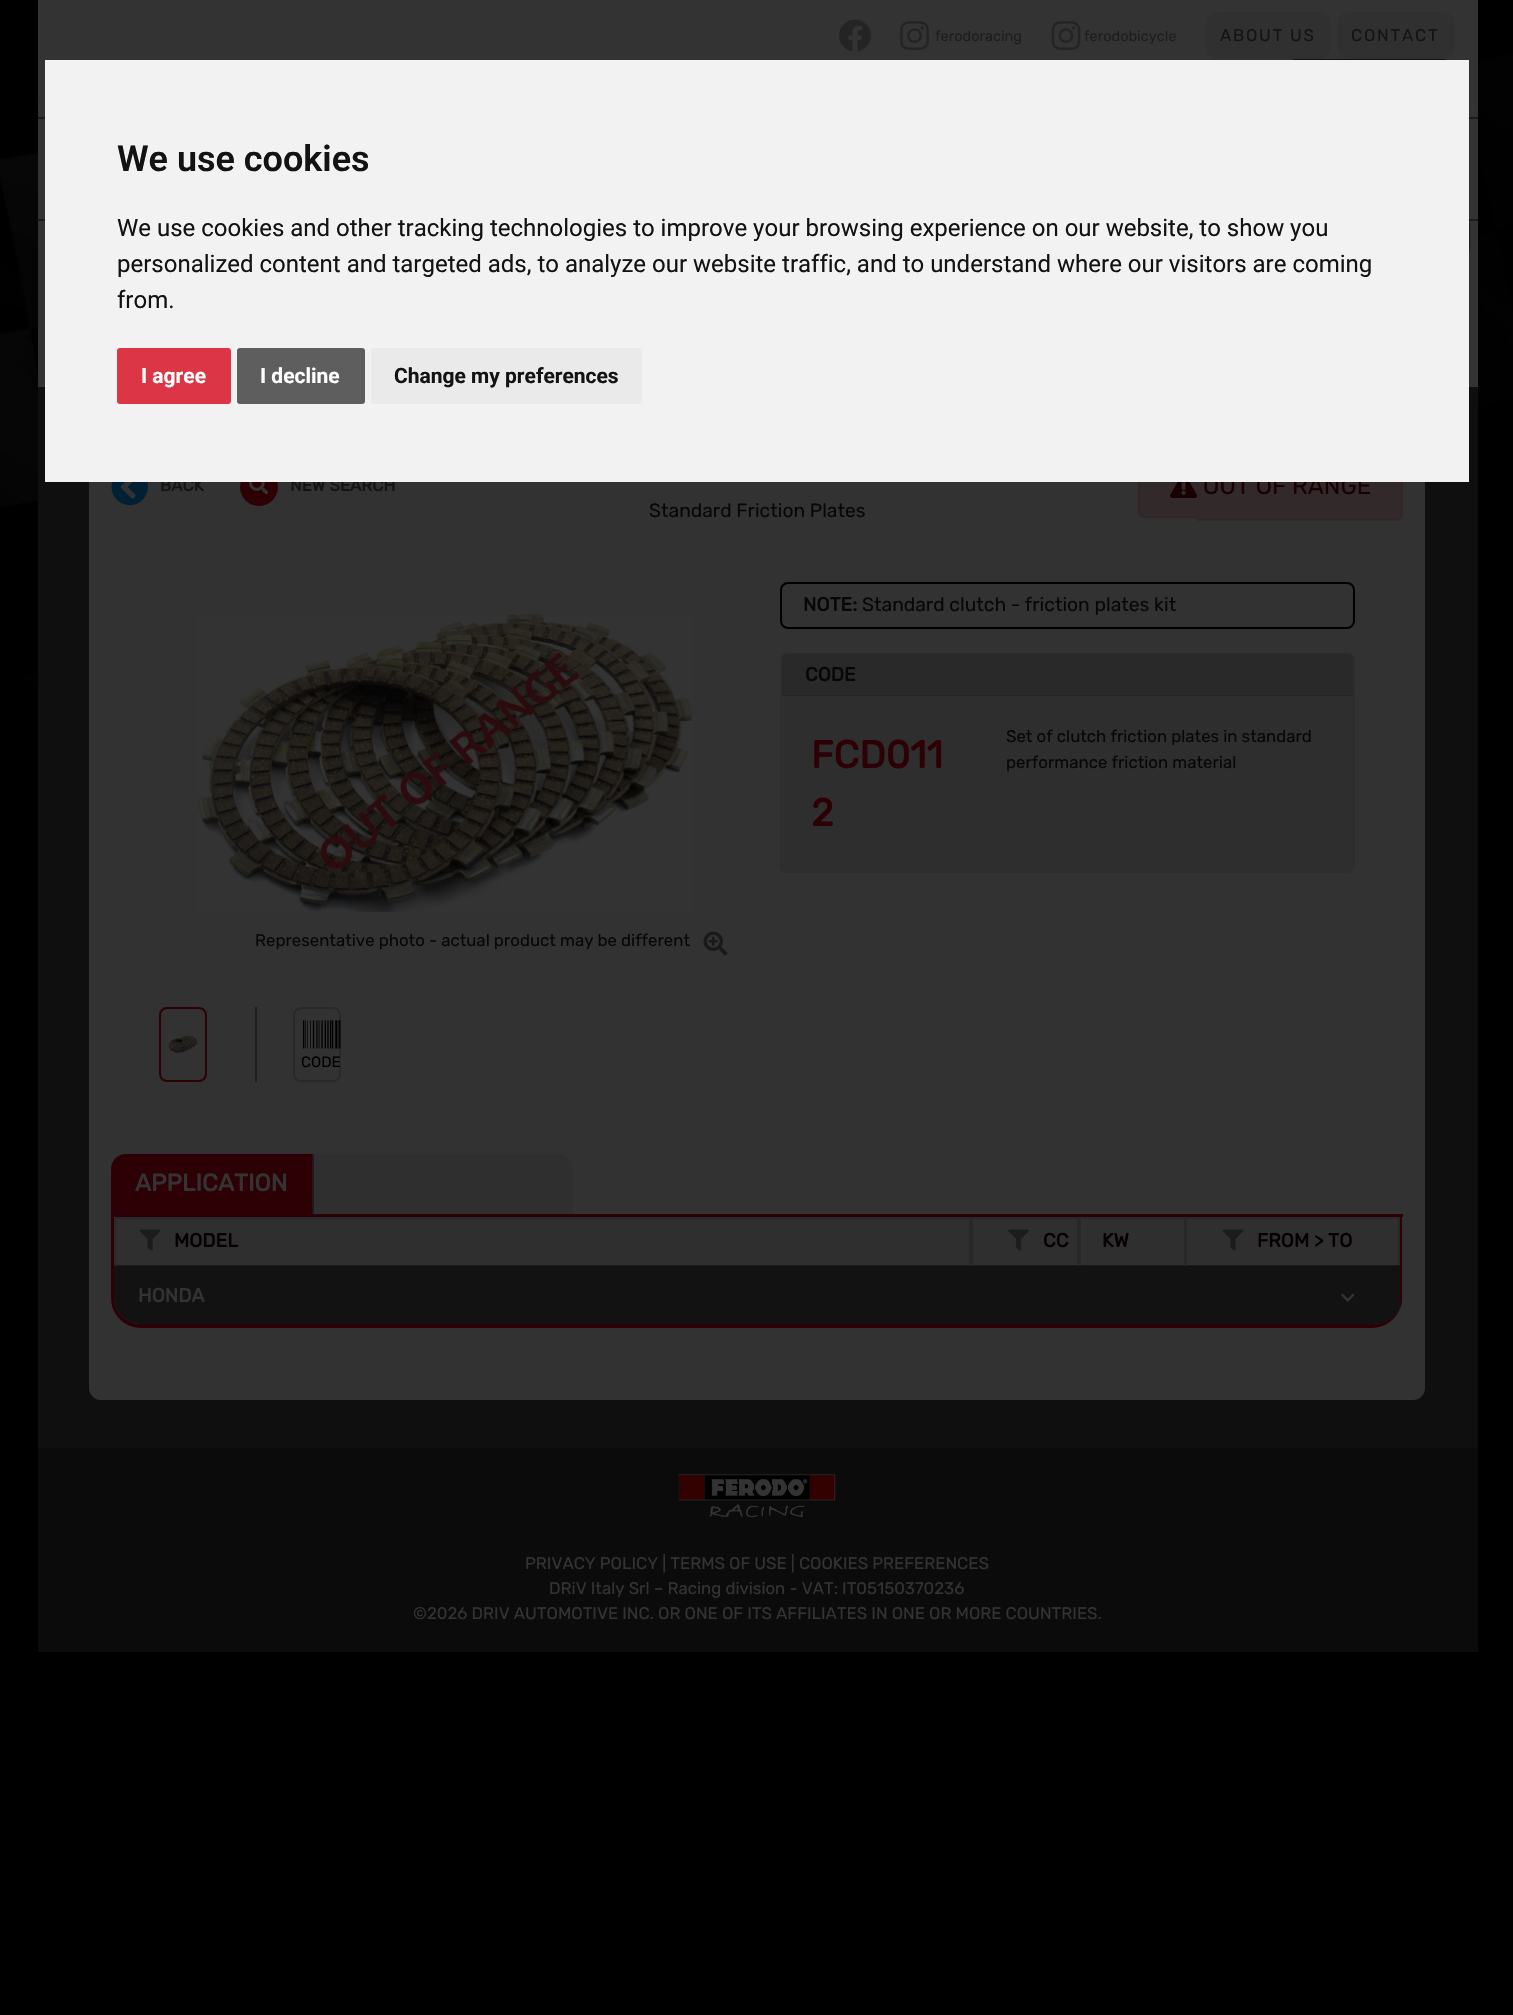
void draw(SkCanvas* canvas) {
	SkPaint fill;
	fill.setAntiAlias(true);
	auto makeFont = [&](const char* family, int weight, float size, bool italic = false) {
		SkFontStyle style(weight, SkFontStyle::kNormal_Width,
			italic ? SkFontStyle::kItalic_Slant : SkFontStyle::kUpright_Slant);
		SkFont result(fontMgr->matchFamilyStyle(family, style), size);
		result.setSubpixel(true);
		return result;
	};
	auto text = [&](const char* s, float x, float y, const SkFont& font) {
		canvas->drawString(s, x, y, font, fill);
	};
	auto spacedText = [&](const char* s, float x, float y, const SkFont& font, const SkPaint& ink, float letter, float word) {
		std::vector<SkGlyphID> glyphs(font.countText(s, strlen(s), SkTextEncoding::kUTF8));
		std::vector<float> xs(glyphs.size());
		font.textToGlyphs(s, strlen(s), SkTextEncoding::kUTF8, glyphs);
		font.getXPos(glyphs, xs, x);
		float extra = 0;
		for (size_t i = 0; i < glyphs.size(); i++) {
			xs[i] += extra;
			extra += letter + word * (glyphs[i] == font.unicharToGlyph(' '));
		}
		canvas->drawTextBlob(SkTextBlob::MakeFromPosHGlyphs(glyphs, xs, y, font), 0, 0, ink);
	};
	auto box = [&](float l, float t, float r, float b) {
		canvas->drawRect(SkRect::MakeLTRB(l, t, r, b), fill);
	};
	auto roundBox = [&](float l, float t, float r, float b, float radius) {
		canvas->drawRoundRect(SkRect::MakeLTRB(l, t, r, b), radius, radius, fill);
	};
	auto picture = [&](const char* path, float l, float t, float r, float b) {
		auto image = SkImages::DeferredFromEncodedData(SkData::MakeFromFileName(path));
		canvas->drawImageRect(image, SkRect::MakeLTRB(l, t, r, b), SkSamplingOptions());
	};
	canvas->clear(0xFF000000);
	picture("image0.png", 0, 0, 1513, 697);
	fill.setColor(0xFF333333);
	box(38, 0, 1478, 219);
	picture("image1.png", 839, 19, 871, 52);
	picture("image2.png", 900, 21, 929, 51);
	picture("image3.png", 1051, 21, 1081, 51);
	fill.setColor(0xFF303030);
	roundBox(1206, 12, 1331, 59, 12);
	roundBox(1337, 12, 1455, 59, 12);
	fill.setColor(0xFF131313);
	roundBox(1284, 59, 1455, 105, 12);
	fill.setColor(0xFF1C1C1C);
	box(38, 117, 1478, 119);
	box(38, 219, 1478, 221);
	fill.setColor(0xFF333333);
	box(38, 221, 1478, 387);
	picture("image4.png", 1469, 221, 1478, 387);
	fill.setColor(0xFF0F0F0F);
	box(38, 387, 1478, 1448);
	fill.setColor(0xFF323232);
	roundBox(89, 435, 1425, 1400, 12);
	picture("image5.png", 111, 482, 148, 506);
	fill.setColor(0xFF2D0005);
	canvas->drawCircle(259, 487, 19, fill);
	picture("image6.png", 249, 482, 269, 495);
	fill.setColor(0xFF32292A);
	canvas->drawPath(SkPathBuilder().moveTo(1145, 455).lineTo(1197, 455).lineTo(1197, 518).lineTo(1145, 518).cubicTo(1141.5f, 518, 1139, 515.5f, 1139, 512).lineTo(1139, 461).cubicTo(1139, 457.5f, 1141.5f, 455, 1145, 455).close().detach(), fill);
	fill.setColor(0xFF312526);
	canvas->drawPath(SkPathBuilder(SkPathFillType::kEvenOdd).moveTo(1144, 454).lineTo(1197, 454).lineTo(1197, 518).lineTo(1144, 518).cubicTo(1141, 518, 1138, 515, 1138, 512).lineTo(1138, 460).cubicTo(1138, 457, 1141, 454, 1144, 454).close().moveTo(1144, 456).lineTo(1197, 456).lineTo(1197, 516).lineTo(1144, 516).cubicTo(1142, 516, 1140, 514, 1140, 512).lineTo(1140, 460).cubicTo(1140, 458, 1142, 456, 1144, 456).close().detach(), fill);
	fill.setColor(0xFF32292A);
	canvas->drawPath(SkPathBuilder().moveTo(1197, 453).lineTo(1397, 453).cubicTo(1400.5f, 453, 1403, 455.5f, 1403, 459).lineTo(1403, 515).cubicTo(1403, 518.5f, 1400.5f, 521, 1397, 521).lineTo(1197, 521).close().detach(), fill);
	fill.setColor(0xFF312526);
	canvas->drawPath(SkPathBuilder(SkPathFillType::kEvenOdd).moveTo(1197, 453).lineTo(1396, 453).cubicTo(1400, 453, 1402, 456, 1402, 459).lineTo(1402, 514).cubicTo(1402, 518, 1400, 520, 1396, 520).lineTo(1197, 520).close().moveTo(1197, 454).lineTo(1396, 454).cubicTo(1399, 454, 1401, 457, 1401, 459).lineTo(1401, 514).cubicTo(1401, 517, 1399, 519, 1396, 519).lineTo(1197, 519).close().detach(), fill);
	picture("image7.png", 1170, 482, 1198, 498);
	fill.setStyle(SkPaint::kStroke_Style);
	fill.setStrokeWidth(2);
	fill.setColor(0xFF000000);
	canvas->drawRoundRect(SkRect::MakeLTRB(781, 583, 1354, 628), 7, 7, fill);
	fill.setColor(0xFF2D2D2D);
	canvas->drawRoundRect(SkRect::MakeLTRB(781, 654, 1354, 872), 5, 5, fill);
	fill.setStyle(SkPaint::kFill_Style);
	fill.setColor(0xFF292929);
	canvas->drawPath(SkPathBuilder().moveTo(787, 654).lineTo(1348, 654).cubicTo(1351, 654, 1353, 656, 1353, 659).lineTo(1353, 696).lineTo(782, 696).lineTo(782, 659).cubicTo(782, 656, 784, 654, 787, 654).close().detach(), fill);
	fill.setColor(0x1F000000);
	box(782, 695, 1353, 696);
	fill.setColor(0xFF2E2E2E);
	box(782, 696, 1353, 871);
	picture("image8.png", 197, 614, 693, 912);
	picture("image9.png", 703, 931, 728, 956);
	fill.setStyle(SkPaint::kStroke_Style);
	fill.setColor(0xFF2D0005);
	canvas->drawRoundRect(SkRect::MakeLTRB(160, 1008, 206, 1081), 7, 7, fill);
	picture("image10.png", 168, 1035, 198, 1053);
	fill.setStyle(SkPaint::kFill_Style);
	fill.setColor(0xFF1E1E1E);
	box(255, 1007, 257, 1082);
	fill.setStyle(SkPaint::kStroke_Style);
	fill.setColor(0xFF292929);
	canvas->drawRoundRect(SkRect::MakeLTRB(294, 1008, 340, 1081), 7, 7, fill);
	picture("image11.png", 303, 1020, 341, 1049);
	fill.setStyle(SkPaint::kFill_Style);
	fill.setColor(0xFF2D0005);
	box(111, 1214, 1403, 1217);
	canvas->drawPath(SkPathBuilder().moveTo(126, 1154).lineTo(314, 1154).lineTo(314, 1214).lineTo(111, 1214).lineTo(111, 1169).cubicTo(111, 1160.5f, 117.5f, 1154, 126, 1154).close().detach(), fill);
	fill.setColor(0xFF1B1B1B);
	box(312, 1154, 314, 1214);
	fill.setColor(0xFF2F2F2F);
	canvas->drawPath(SkPathBuilder().moveTo(314, 1154).lineTo(558, 1154).cubicTo(566.5f, 1154, 573, 1160.5f, 573, 1169).lineTo(573, 1214).lineTo(314, 1214).close().detach(), fill);
	fill.setColor(0xFF0B0B0B);
	box(38, 1448, 1478, 1652);
	picture("image15.png", 678, 1474, 836, 1518);
	auto font1 = makeFont("Rubik", 300, 14.5f);
	fill.setColor(0xFF1D1D1D);
	text("ferodoracing", 935, 41, font1);
	text("ferodobicycle", 1084, 41, font1);
	auto font2 = makeFont("Rubik", 300, 16.8f);
	fill.setColor(0xFF131313);
	spacedText("ABOUT US", 1220, 41, font2, fill, 1.75f, 0);
	spacedText("CONTACT", 1351, 41, font2, fill, 1.75f, 0);
	auto font3 = makeFont("Rubik", 700, 16.8f);
	text("BACK", 160, 491, font3);
	text("NEW SEARCH", 290, 491, font3);
	auto font4 = makeFont("Rubik", 300, 24);
	fill.setColor(0xFF180003);
	text("OUT OF RANGE", 1203, 494, font4);
	fill.setColor(0xFFF2F2F2);
	box(45, 60, 1469, 482);
	fill.setColor(0xFFEAEAEA);
	roundBox(371, 348, 642, 404, 3);
	auto font5 = makeFont("Roboto", 700, 21);
	fill.setColor(0xFF131313);
	text("Change my preferences", 394, 383, font5);
	fill.setColor(0xFF5E5E5E);
	roundBox(237, 348, 365, 404, 3);
	fill.setColor(0xFFFFFFFF);
	text("I decline", 260, 383, font5);
	fill.setColor(0xFFDC3545);
	roundBox(117, 348, 231, 404, 3);
	fill.setColor(0xFFFFFFFF);
	text("I agree", 141, 383, font5);
	auto font6 = makeFont("Roboto", 400, 24);
	fill.setColor(0xFF131313);
	text("from.", 117, 308, font6);
	text("personalized content and targeted ads, to analyze our website traffic, and to understand where our visitors are coming", 117, 272, font6);
	text("We use cookies and other tracking technologies to improve your browsing experience on our website, to show you", 117, 236, font6);
	auto font7 = makeFont("Roboto", 600, 36);
	text("We use cookies", 117, 171, font7);
	auto font8 = makeFont("Rubik", 300, 19.25f);
	fill.setColor(0xFF070708);
	text("Standard Friction Plates", 649, 517, font8);
	auto font9 = makeFont("Rubik", 700, 19.25f);
	text("NOTE:", 803, 611, font9);
	text("Standard clutch - friction plates kit", 862, 611, font8);
	text("CODE", 805, 681, font9);
	auto font10 = makeFont("Rubik", 700, 38.5f);
	fill.setColor(0xFF2D0005);
	text("FCD011", 811, 768, font10);
	text("2", 811, 826, font10);
	fill.setColor(0xFF070708);
	text("Set of clutch friction plates in standard", 1006, 742, font2);
	text("performance friction material", 1006, 768, font2);
	text("Representative photo - actual product may be different", 255, 946, font2);
	auto font11 = makeFont("Rubik", 300, 15);
	fill.setColor(0xFF000000);
	text("CODE", 301, 1067, font11);
	auto font12 = makeFont("Rubik", 700, 24);
	fill.setColor(0xFF333333);
	text("APPLICATION", 135, 1191, font12);
	fill.setColor(0xFF2D0005);
	canvas->drawPath(SkPathBuilder(SkPathFillType::kEvenOdd).moveTo(111, 1180).lineTo(1402, 1180).lineTo(1402, 1298).cubicTo(1402, 1314, 1389, 1328, 1372, 1328).lineTo(141, 1328).cubicTo(124, 1328, 111, 1314, 111, 1298).close().moveTo(114, 1180).lineTo(1402, 1180).lineTo(1402, 1298).cubicTo(1402, 1312, 1389, 1324, 1372, 1324).lineTo(141, 1324).cubicTo(126, 1324, 114, 1312, 114, 1298).close().detach(), fill);
	canvas->drawPath(SkPathBuilder().moveTo(1400, 1217).lineTo(1402, 1217).lineTo(1402, 1298).cubicTo(1402, 1301, 1402, 1305, 1400, 1308).close().detach(), fill);
	fill.setColor(0xFF2F2F2F);
	box(116, 1219, 969, 1265);
	fill.setColor(0xFF282828);
	box(114, 1217, 1400, 1219);
	box(969, 1217, 971, 1266);
	fill.setColor(0xFF1A1A1A);
	box(114, 1265, 971, 1266);
	fill.setColor(0xFF282828);
	box(114, 1217, 116, 1266);
	picture("image12.png", 139, 1229, 161, 1251);
	fill.setColor(0xFF070000);
	text("MODEL", 174, 1247, font9);
	fill.setColor(0xFF2F2F2F);
	box(973, 1219, 1077, 1265);
	fill.setColor(0xFF282828);
	box(1077, 1217, 1079, 1266);
	fill.setColor(0xFF1A1A1A);
	box(971, 1265, 1079, 1266);
	fill.setColor(0xFF282828);
	box(971, 1217, 973, 1266);
	picture("image13.png", 1008, 1229, 1029, 1251);
	fill.setColor(0xFF070000);
	text("CC", 1043, 1247, font9);
	fill.setColor(0xFF2F2F2F);
	box(1081, 1219, 1184, 1265);
	fill.setColor(0xFF282828);
	box(1184, 1217, 1185, 1266);
	fill.setColor(0xFF1A1A1A);
	box(1079, 1265, 1185, 1266);
	fill.setColor(0xFF282828);
	box(1079, 1217, 1081, 1266);
	fill.setColor(0xFF070000);
	text("KW", 1102, 1247, font9);
	fill.setColor(0xFF2F2F2F);
	box(1187, 1219, 1398, 1265);
	fill.setColor(0xFF282828);
	box(1398, 1217, 1400, 1266);
	fill.setColor(0xFF1A1A1A);
	box(1185, 1265, 1400, 1266);
	fill.setColor(0xFF282828);
	box(1185, 1217, 1187, 1266);
	picture("image12.png", 1222, 1229, 1244, 1251);
	fill.setColor(0xFF070000);
	text("FROM > TO", 1257, 1247, font9);
	fill.setColor(0xFF121212);
	canvas->drawPath(SkPathBuilder().moveTo(114, 1266).lineTo(114, 1298).cubicTo(114, 1312, 126, 1324, 141, 1324).lineTo(1372, 1324).cubicTo(1385, 1324, 1395, 1318, 1400, 1308).lineTo(1400, 1266).close().detach(), fill);
	fill.setColor(0xFF333333);
	text("HONDA", 138, 1302, font9);
	picture("image14.png", 1341, 1293, 1355, 1302);
	text("PRIVACY POLICY | TERMS OF USE | COOKIES PREFERENCES", 525, 1569, font2);
	text("DRiV Italy Srl – Racing division - VAT: IT05150370236", 549, 1594, font2);
	text("©2026 DRIV AUTOMOTIVE INC. OR ONE OF ITS AFFILIATES IN ONE OR MORE COUNTRIES.", 413, 1619, font2);
}
